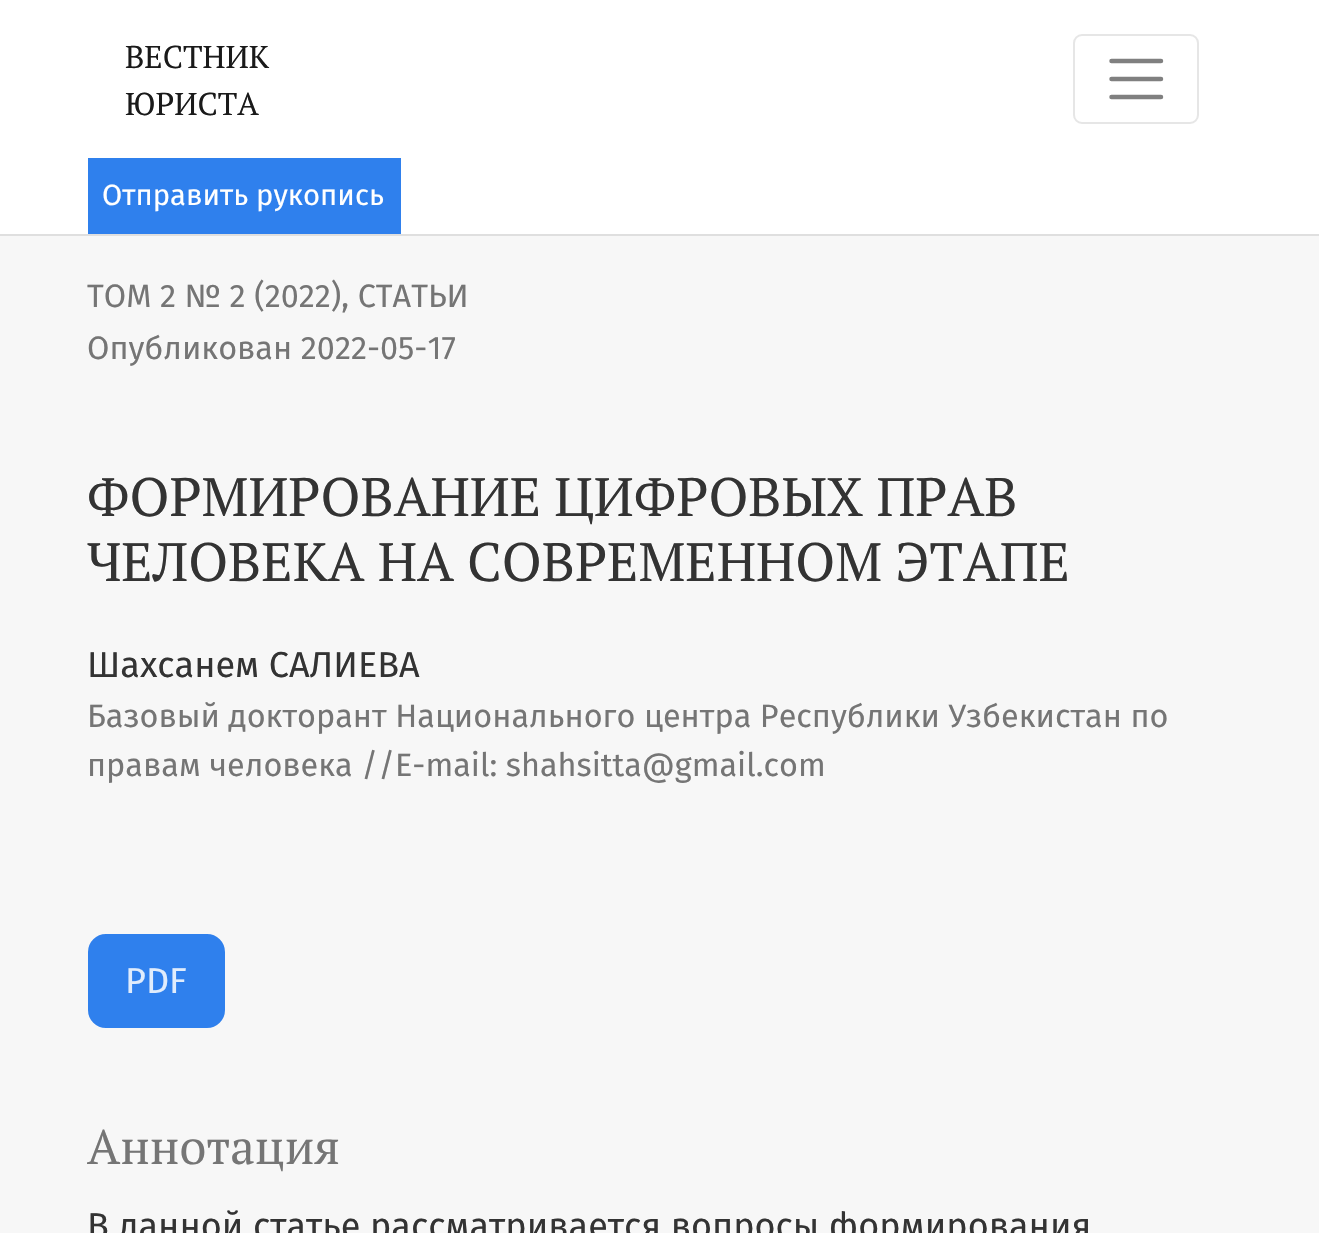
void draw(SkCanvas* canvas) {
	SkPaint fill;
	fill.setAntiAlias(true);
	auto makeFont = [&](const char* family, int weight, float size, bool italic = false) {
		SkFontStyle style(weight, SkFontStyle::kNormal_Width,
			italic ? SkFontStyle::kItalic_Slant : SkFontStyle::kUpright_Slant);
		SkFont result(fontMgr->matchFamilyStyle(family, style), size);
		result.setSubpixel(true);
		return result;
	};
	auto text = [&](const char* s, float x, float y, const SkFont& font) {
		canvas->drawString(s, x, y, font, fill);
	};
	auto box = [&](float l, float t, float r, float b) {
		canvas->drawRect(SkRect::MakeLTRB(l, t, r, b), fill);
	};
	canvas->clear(0xFFF7F7F7);
	fill.setColor(0xFFFFFFFF);
	box(0, 0, 1319, 234);
	fill.setColor(0xFFDFDFDF);
	box(0, 234, 1319, 236);
	fill.setStyle(SkPaint::kStroke_Style);
	fill.setStrokeWidth(2);
	fill.setColor(0xFFE6E6E6);
	canvas->drawRoundRect(SkRect::MakeLTRB(1074, 35, 1198, 123), 8, 8, fill);
	fill.setStrokeWidth(4.5f);
	fill.setStrokeCap(SkPaint::kRound_Cap);
	fill.setColor(0xFF808080);
	canvas->drawPath(SkPathBuilder().moveTo(1111.5f, 61).lineTo(1161, 61).moveTo(1111.5f, 79).lineTo(1161, 79).moveTo(1111.5f, 97).lineTo(1161, 97).detach(), fill);
	fill.setStyle(SkPaint::kFill_Style);
	fill.setColor(0xFF2F80ED);
	box(88, 158, 401, 234);
	canvas->drawRoundRect(SkRect::MakeLTRB(89, 935, 224, 1027), 17, 17, fill);
	fill.setStyle(SkPaint::kStroke_Style);
	fill.setStrokeWidth(2);
	fill.setStrokeCap(SkPaint::kButt_Cap);
	canvas->drawRoundRect(SkRect::MakeLTRB(89, 935, 224, 1027), 17, 17, fill);
	auto font1 = makeFont("PT Serif", 400, 31.5f);
	fill.setStyle(SkPaint::kFill_Style);
	fill.setColor(0xFF1A1A1A);
	text("ВЕСТНИК", 125, 68, font1);
	text("ЮРИСТА", 125, 115, font1);
	auto font2 = makeFont("Fira Sans", 400, 29.25f);
	fill.setColor(0xFFFFFFFF);
	text("Отправить рукопись", 102, 205, font2);
	auto font3 = makeFont("Fira Sans", 400, 32.4f);
	fill.setColor(0xFF757575);
	text("ТОМ 2 № 2 (2022), СТАТЬИ", 87, 307, font3);
	text("Опубликован 2022-05-17", 87, 359, font3);
	auto font4 = makeFont("PT Serif", 400, 54);
	fill.setColor(0xFF333333);
	text("ФОРМИРОВАНИЕ ЦИФРОВЫХ ПРАВ", 87, 516, font4);
	text("ЧЕЛОВЕКА НА СОВРЕМЕННОМ ЭТАПЕ", 87, 581, font4);
	auto font5 = makeFont("Fira Sans", 400, 36);
	text("Шахсанем САЛИЕВА", 87, 677, font5);
	fill.setColor(0xFF757575);
	text("Базовый докторант Национального центра Республики Узбекистан по", 87, 727, font3);
	text("правам человека //E-mail: shahsitta@gmail.com", 87, 776, font3);
	fill.setColor(0xFFE0ECFC);
	text("PDF", 125, 993, font5);
	auto font6 = makeFont("PT Serif", 400, 48.5f);
	fill.setColor(0xFF757575);
	text("Аннотация", 87, 1164, font6);
	fill.setColor(0xFF333333);
	text("В данной статье рассматривается вопросы формирования", 87, 1238, font5);
}
